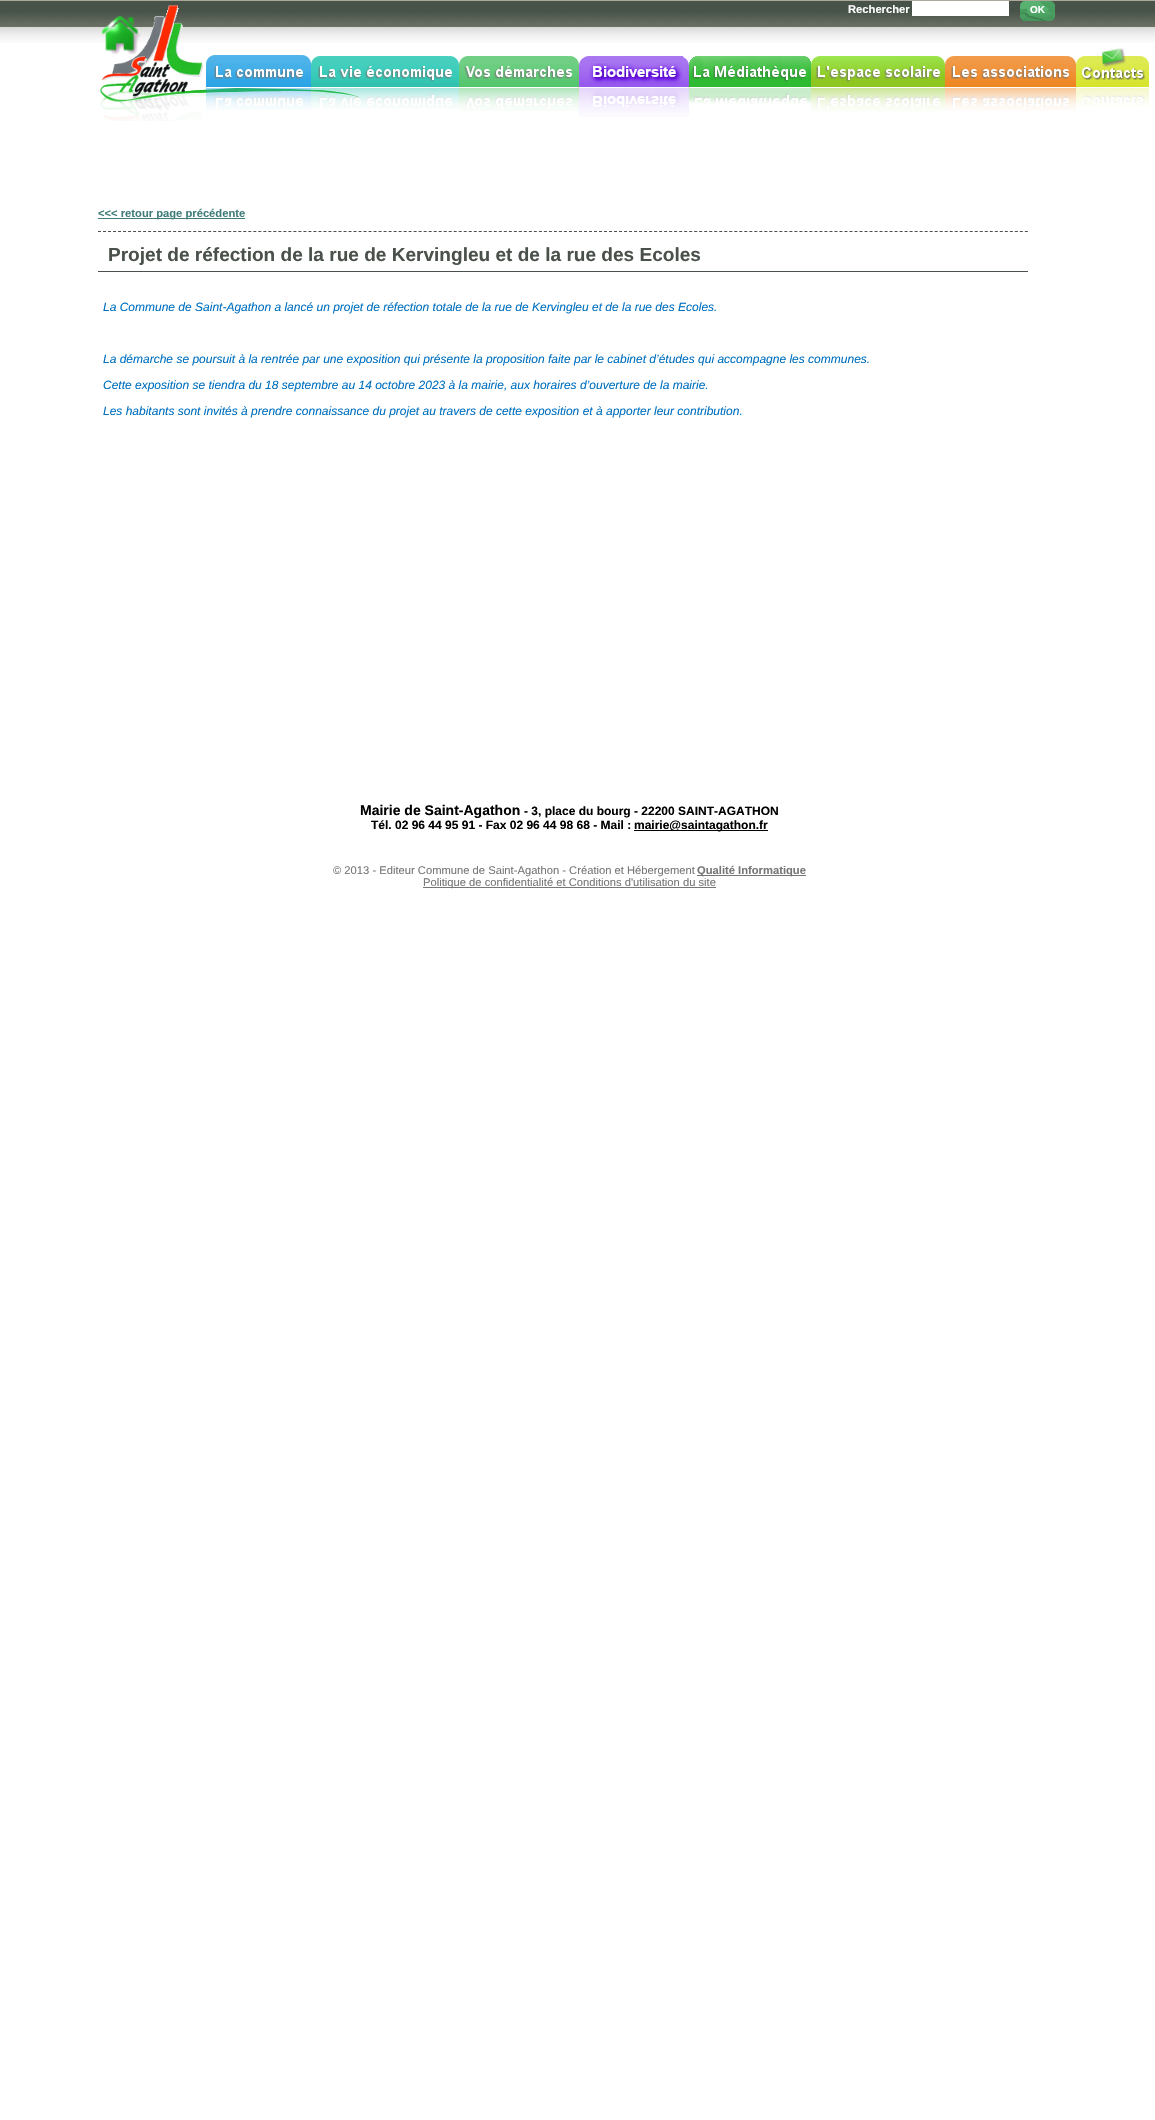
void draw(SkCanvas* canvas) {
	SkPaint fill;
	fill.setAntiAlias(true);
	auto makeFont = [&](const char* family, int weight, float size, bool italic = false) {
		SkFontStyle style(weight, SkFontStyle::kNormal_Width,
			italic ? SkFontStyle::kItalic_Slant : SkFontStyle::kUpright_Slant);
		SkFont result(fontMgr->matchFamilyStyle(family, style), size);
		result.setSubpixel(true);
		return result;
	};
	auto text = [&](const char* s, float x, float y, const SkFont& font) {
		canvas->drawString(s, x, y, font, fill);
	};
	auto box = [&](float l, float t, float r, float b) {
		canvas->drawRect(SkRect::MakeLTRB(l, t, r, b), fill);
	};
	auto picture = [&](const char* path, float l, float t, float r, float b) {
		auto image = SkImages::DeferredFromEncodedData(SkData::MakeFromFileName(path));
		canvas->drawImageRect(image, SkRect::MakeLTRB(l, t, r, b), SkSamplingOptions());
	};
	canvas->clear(0xFFFFFFFF);
	picture("image0.png", 0, 0, 1155, 43);
	picture("image1.png", 98, 5, 359, 121);
	fill.setColor(0xFFFFFFFF);
	box(912, 1, 1009, 16);
	picture("image2.png", 1020, 1, 1055, 21);
	picture("image3.png", 101, 16, 141, 55);
	picture("image4.png", 206, 55, 311, 110);
	picture("image5.png", 311, 56, 459, 109);
	picture("image6.png", 459, 56, 579, 111);
	picture("image7.png", 579, 56, 689, 117);
	picture("image8.png", 689, 56, 811, 104);
	picture("image9.png", 811, 56, 945, 113);
	picture("image10.png", 945, 56, 1076, 111);
	picture("image11.png", 1076, 48, 1149, 107);
	fill.setColor(0xFF427D7B);
	box(98, 218, 245, 219);
	fill.setStyle(SkPaint::kStroke_Style);
	fill.setStrokeWidth(1);
	fill.setColor(0xFF4A514A);
	fill.setPathEffect(SkDashPathEffect::Make({{3, 2.01f}}, 0));
	canvas->drawPath(SkPathBuilder().moveTo(98, 231.5f).lineTo(1028, 231.5f).detach(), fill);
	fill.setPathEffect(nullptr);
	fill.setStyle(SkPaint::kFill_Style);
	box(98, 271, 1028, 272);
	fill.setColor(0xFF000000);
	box(634, 830, 768, 831);
	fill.setColor(0xFF767676);
	box(697, 875, 806, 876);
	box(423, 887, 716, 888);
	auto font1 = makeFont("Liberation Sans", 700, 11.2f);
	fill.setColor(0xFFFFFFFF);
	text("Rechercher", 848, 13, font1);
	auto font2 = makeFont("Liberation Sans", 700, 10);
	text("OK", 1030, 13, font2);
	fill.setColor(0xFF427D7B);
	text("<<< retour page précédente", 98, 217, font1);
	auto font3 = makeFont("Liberation Sans", 700, 19.05f);
	fill.setColor(0xFF4A514A);
	text("Projet de réfection de la rue de Kervingleu et de la rue des Ecoles", 108, 261, font3);
	auto font4 = makeFont("Liberation Sans", 400, 12, true);
	fill.setColor(0xFF0070C0);
	text("La Commune de Saint-Agathon a lancé un projet de réfection totale de la rue de Kervingleu et de la rue des Ecoles.", 103, 311, font4);
	text("La démarche se poursuit à la rentrée par une exposition qui présente la proposition faite par le cabinet d’études qui accompagne les communes.", 103, 363, font4);
	text("Cette exposition se tiendra du 18 septembre au 14 octobre 2023 à la mairie, aux horaires d’ouverture de la mairie.", 103, 389, font4);
	text("Les habitants sont invités à prendre connaissance du projet au travers de cette exposition et à apporter leur contribution.", 103, 415, font4);
	auto font5 = makeFont("Liberation Sans", 700, 14);
	fill.setColor(0xFF000000);
	text("Mairie de Saint-Agathon", 360, 815, font5);
	auto font6 = makeFont("Liberation Sans", 700, 12);
	text("- 3, place du bourg - 22200 SAINT-AGATHON", 524, 815, font6);
	text("Tél. 02 96 44 95 91 - Fax 02 96 44 98 68 - Mail :", 371, 829, font6);
	text("mairie@saintagathon.fr", 634, 829, font6);
	auto font7 = makeFont("Liberation Sans", 400, 11.2f);
	fill.setColor(0xFF767676);
	text("© 2013 - Editeur Commune de Saint-Agathon - Création et Hébergement", 333, 874, font7);
	text("Qualité Informatique", 697, 874, font1);
	text("Politique de confidentialité et Conditions d'utilisation du site", 423, 886, font7);
}
